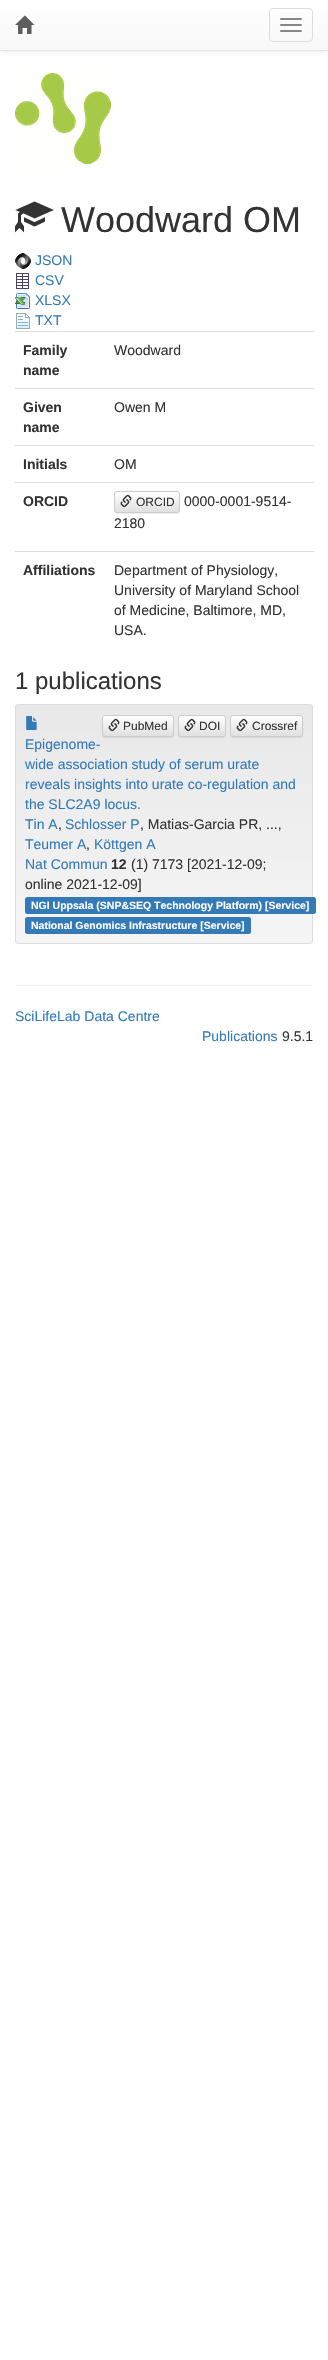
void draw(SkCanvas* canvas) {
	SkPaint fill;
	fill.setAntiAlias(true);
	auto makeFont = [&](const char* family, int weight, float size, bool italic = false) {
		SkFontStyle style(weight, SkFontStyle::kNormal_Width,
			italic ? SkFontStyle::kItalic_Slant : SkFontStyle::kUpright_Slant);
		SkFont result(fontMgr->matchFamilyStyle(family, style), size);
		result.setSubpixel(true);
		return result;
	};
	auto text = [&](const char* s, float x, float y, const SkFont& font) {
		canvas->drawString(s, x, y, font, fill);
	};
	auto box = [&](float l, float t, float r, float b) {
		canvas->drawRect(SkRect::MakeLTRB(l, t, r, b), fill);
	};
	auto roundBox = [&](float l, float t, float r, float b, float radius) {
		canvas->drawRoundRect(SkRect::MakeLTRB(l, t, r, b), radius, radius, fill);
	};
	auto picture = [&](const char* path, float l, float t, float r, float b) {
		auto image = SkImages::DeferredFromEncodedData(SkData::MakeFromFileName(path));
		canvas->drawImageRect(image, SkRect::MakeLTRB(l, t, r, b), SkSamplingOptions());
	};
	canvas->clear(0xFFFFFFFF);
	fill.setColor(0x12000000);
	fill.setMaskFilter(SkMaskFilter::MakeBlur(kNormal_SkBlurStyle, 2.5f));
	canvas->drawRect(SkRect::MakeLTRB(0, 1, 328, 52), fill);
	fill.setMaskFilter(nullptr);
	{
		const SkColor colors[] = {0xFFFFFFFF, 0xFFF8F8F8};
		const float stops[] = {0, 1};
		const SkPoint ends[] = {{164, 0}, {164, 50}};
		fill.setShader(SkGradientShader::MakeLinear(ends, colors, stops, 2, SkTileMode::kClamp));
		fill.setAlpha(255);
	}
	box(0, 0, 328, 50);
	fill.setShader(nullptr);
	fill.setColor(0xFFE7E7E7);
	box(0, 50, 328, 51);
	picture("image0.png", 15, 15, 35, 34);
	fill.setStyle(SkPaint::kStroke_Style);
	fill.setStrokeWidth(1);
	fill.setColor(0xFFDDDDDD);
	canvas->drawRoundRect(SkRect::MakeLTRB(269.5f, 8.5f, 312.5f, 41.5f), 3.5f, 3.5f, fill);
	fill.setStyle(SkPaint::kFill_Style);
	fill.setColor(0xFF888888);
	roundBox(280, 18, 302, 20, 1);
	roundBox(280, 24, 302, 26, 1);
	roundBox(280, 30, 302, 32, 1);
	picture("image1.png", 15, 73, 111, 164);
	picture("image2.png", 15, 201, 54, 233);
	picture("image3.png", 15, 253, 31, 269);
	picture("image4.png", 16, 273, 29, 289);
	picture("image5.png", 15, 293, 30, 309);
	picture("image6.png", 16, 313, 30, 329);
	fill.setColor(0xFFDDDDDD);
	box(15, 331, 314, 332);
	box(15, 388, 314, 389);
	box(15, 445, 314, 446);
	box(15, 482, 314, 483);
	fill.setColor(0x12000000);
	fill.setMaskFilter(SkMaskFilter::MakeBlur(kNormal_SkBlurStyle, 0.5f));
	canvas->drawRoundRect(SkRect::MakeLTRB(114, 492, 180, 514), 3, 3, fill);
	fill.setMaskFilter(nullptr);
	canvas->save();
	canvas->clipPath(SkPathBuilder().moveTo(117, 491).lineTo(177, 491).cubicTo(178.5f, 491, 180, 492.5f, 180, 494).lineTo(180, 510).cubicTo(180, 511.5f, 178.5f, 513, 177, 513).lineTo(117, 513).cubicTo(115.5f, 513, 114, 511.5f, 114, 510).lineTo(114, 494).cubicTo(114, 492.5f, 115.5f, 491, 117, 491).close().detach(), true);
	{
		const SkColor colors[] = {0xFFFFFFFF, 0xFFE0E0E0};
		const float stops[] = {0, 1};
		const SkPoint ends[] = {{147, 492}, {147, 512}};
		fill.setShader(SkGradientShader::MakeLinear(ends, colors, stops, 2, SkTileMode::kClamp));
		fill.setAlpha(255);
	}
	box(114, 492, 180, 512);
	canvas->restore();
	fill.setStyle(SkPaint::kStroke_Style);
	fill.setShader(nullptr);
	fill.setColor(0xFFCCCCCC);
	canvas->drawRoundRect(SkRect::MakeLTRB(114.5f, 491.5f, 179.5f, 512.5f), 2.5f, 2.5f, fill);
	picture("image7.png", 120, 494, 132, 508);
	fill.setStyle(SkPaint::kFill_Style);
	fill.setColor(0xFFDDDDDD);
	box(15, 551, 314, 552);
	canvas->save();
	canvas->clipPath(SkPathBuilder().moveTo(18, 704).lineTo(310, 704).cubicTo(311.5f, 704, 313, 705.5f, 313, 707).lineTo(313, 941).cubicTo(313, 942.5f, 311.5f, 944, 310, 944).lineTo(18, 944).cubicTo(16.5f, 944, 15, 942.5f, 15, 941).lineTo(15, 707).cubicTo(15, 705.5f, 16.5f, 704, 18, 704).close().detach(), true);
	{
		const SkColor colors[] = {0xFFE8E8E8, 0xFFF5F5F5};
		const float stops[] = {0, 1};
		const SkPoint ends[] = {{164, 705}, {164, 943}};
		fill.setShader(SkGradientShader::MakeLinear(ends, colors, stops, 2, SkTileMode::kClamp));
		fill.setAlpha(255);
	}
	box(15, 705, 313, 943);
	canvas->restore();
	fill.setStyle(SkPaint::kStroke_Style);
	fill.setShader(nullptr);
	fill.setColor(0xFFDCDCDC);
	canvas->drawRoundRect(SkRect::MakeLTRB(15.5f, 704.5f, 312.5f, 943.5f), 2.5f, 2.5f, fill);
	fill.setStyle(SkPaint::kFill_Style);
	fill.setColor(0x12000000);
	fill.setMaskFilter(SkMaskFilter::MakeBlur(kNormal_SkBlurStyle, 0.5f));
	canvas->drawRoundRect(SkRect::MakeLTRB(102, 716, 174, 738), 3, 3, fill);
	fill.setMaskFilter(nullptr);
	canvas->save();
	canvas->clipPath(SkPathBuilder().moveTo(105, 715).lineTo(171, 715).cubicTo(172.5f, 715, 174, 716.5f, 174, 718).lineTo(174, 734).cubicTo(174, 735.5f, 172.5f, 737, 171, 737).lineTo(105, 737).cubicTo(103.5f, 737, 102, 735.5f, 102, 734).lineTo(102, 718).cubicTo(102, 716.5f, 103.5f, 715, 105, 715).close().detach(), true);
	{
		const SkColor colors[] = {0xFFFFFFFF, 0xFFE0E0E0};
		const float stops[] = {0, 1};
		const SkPoint ends[] = {{138, 716}, {138, 736}};
		fill.setShader(SkGradientShader::MakeLinear(ends, colors, stops, 2, SkTileMode::kClamp));
		fill.setAlpha(255);
	}
	box(102, 716, 174, 736);
	canvas->restore();
	fill.setStyle(SkPaint::kStroke_Style);
	fill.setShader(nullptr);
	fill.setColor(0xFFCCCCCC);
	canvas->drawRoundRect(SkRect::MakeLTRB(102.5f, 715.5f, 173.5f, 736.5f), 2.5f, 2.5f, fill);
	picture("image7.png", 108, 718, 120, 732);
	fill.setStyle(SkPaint::kFill_Style);
	fill.setColor(0x12000000);
	fill.setMaskFilter(SkMaskFilter::MakeBlur(kNormal_SkBlurStyle, 0.5f));
	canvas->drawRoundRect(SkRect::MakeLTRB(178, 716, 226, 738), 3, 3, fill);
	fill.setMaskFilter(nullptr);
	canvas->save();
	canvas->clipPath(SkPathBuilder().moveTo(181, 715).lineTo(223, 715).cubicTo(224.5f, 715, 226, 716.5f, 226, 718).lineTo(226, 734).cubicTo(226, 735.5f, 224.5f, 737, 223, 737).lineTo(181, 737).cubicTo(179.5f, 737, 178, 735.5f, 178, 734).lineTo(178, 718).cubicTo(178, 716.5f, 179.5f, 715, 181, 715).close().detach(), true);
	{
		const SkColor colors[] = {0xFFFFFFFF, 0xFFE0E0E0};
		const float stops[] = {0, 1};
		const SkPoint ends[] = {{202, 716}, {202, 736}};
		fill.setShader(SkGradientShader::MakeLinear(ends, colors, stops, 2, SkTileMode::kClamp));
		fill.setAlpha(255);
	}
	box(178, 716, 226, 736);
	canvas->restore();
	fill.setStyle(SkPaint::kStroke_Style);
	fill.setShader(nullptr);
	fill.setColor(0xFFCCCCCC);
	canvas->drawRoundRect(SkRect::MakeLTRB(178.5f, 715.5f, 225.5f, 736.5f), 2.5f, 2.5f, fill);
	picture("image7.png", 184, 718, 196, 732);
	fill.setStyle(SkPaint::kFill_Style);
	fill.setColor(0x12000000);
	fill.setMaskFilter(SkMaskFilter::MakeBlur(kNormal_SkBlurStyle, 0.5f));
	canvas->drawRoundRect(SkRect::MakeLTRB(230, 716, 303, 738), 3, 3, fill);
	fill.setMaskFilter(nullptr);
	canvas->save();
	canvas->clipPath(SkPathBuilder().moveTo(233, 715).lineTo(300, 715).cubicTo(301.5f, 715, 303, 716.5f, 303, 718).lineTo(303, 734).cubicTo(303, 735.5f, 301.5f, 737, 300, 737).lineTo(233, 737).cubicTo(231.5f, 737, 230, 735.5f, 230, 734).lineTo(230, 718).cubicTo(230, 716.5f, 231.5f, 715, 233, 715).close().detach(), true);
	{
		const SkColor colors[] = {0xFFFFFFFF, 0xFFE0E0E0};
		const float stops[] = {0, 1};
		const SkPoint ends[] = {{267, 716}, {267, 736}};
		fill.setShader(SkGradientShader::MakeLinear(ends, colors, stops, 2, SkTileMode::kClamp));
		fill.setAlpha(255);
	}
	box(230, 716, 303, 736);
	canvas->restore();
	fill.setStyle(SkPaint::kStroke_Style);
	fill.setShader(nullptr);
	fill.setColor(0xFFCCCCCC);
	canvas->drawRoundRect(SkRect::MakeLTRB(230.5f, 715.5f, 302.5f, 736.5f), 2.5f, 2.5f, fill);
	picture("image7.png", 236, 718, 248, 732);
	picture("image8.png", 26, 716, 37, 730);
	fill.setStyle(SkPaint::kFill_Style);
	fill.setColor(0xFF337AB7);
	roundBox(25, 897, 316, 914, 2.5f);
	roundBox(25, 917, 251, 934, 2.5f);
	fill.setColor(0xFFEEEEEE);
	box(15, 985, 313, 986);
	auto font1 = makeFont("Liberation Sans", 400, 36);
	fill.setColor(0xFF333333);
	text("Woodward OM", 61, 232, font1);
	auto font2 = makeFont("Liberation Sans", 400, 14);
	fill.setColor(0xFF337AB7);
	text("JSON", 35, 265, font2);
	text("CSV", 35, 285, font2);
	text("XLSX", 35, 305, font2);
	text("TXT", 35, 325, font2);
	auto font3 = makeFont("Liberation Sans", 700, 14);
	fill.setColor(0xFF333333);
	text("Family", 23, 355, font3);
	text("name", 23, 375, font3);
	text("Woodward", 114, 355, font2);
	text("Given", 23, 412, font3);
	text("name", 23, 432, font3);
	text("Owen M", 114, 412, font2);
	text("Initials", 23, 469, font3);
	text("OM", 114, 469, font2);
	text("ORCID", 23, 506, font3);
	auto font4 = makeFont("Liberation Sans", 400, 12);
	text("ORCID", 136, 506, font4);
	text("0000-0001-9514-", 184, 506, font2);
	text("2180", 114, 528, font2);
	text("Affiliations", 23, 575, font3);
	text("Department of Physiology,", 114, 575, font2);
	text("University of Maryland School", 114, 595, font2);
	text("of Medicine, Baltimore, MD,", 114, 615, font2);
	text("USA.", 114, 635, font2);
	auto font5 = makeFont("Liberation Sans", 400, 24);
	text("1 publications", 15, 689, font5);
	text("PubMed", 123, 730, font4);
	text("DOI", 199, 730, font4);
	text("Crossref", 252, 730, font4);
	fill.setColor(0xFF337AB7);
	text("Epigenome-", 25, 749, font2);
	text("wide association study of serum urate", 25, 769, font2);
	text("reveals insights into urate co-regulation and", 25, 789, font2);
	text("the SLC2A9 locus.", 25, 809, font2);
	text("Tin A", 25, 829, font2);
	fill.setColor(0xFF333333);
	text(",", 58, 829, font2);
	fill.setColor(0xFF337AB7);
	text("Schlosser P", 65, 829, font2);
	fill.setColor(0xFF333333);
	text(", Matias-Garcia PR, ...,", 140, 829, font2);
	fill.setColor(0xFF337AB7);
	text("Teumer A", 25, 849, font2);
	fill.setColor(0xFF333333);
	text(",", 86, 849, font2);
	fill.setColor(0xFF337AB7);
	text("Köttgen A", 94, 849, font2);
	text("Nat Commun", 25, 869, font2);
	fill.setColor(0xFF333333);
	text("12", 111, 869, font3);
	text("(1) 7173 [2021-12-09;", 131, 869, font2);
	text("online 2021-12-09]", 25, 889, font2);
	auto font6 = makeFont("Liberation Sans", 700, 10.5f);
	fill.setColor(0xFFFFFFFF);
	text("NGI Uppsala (SNP&SEQ Technology Platform) [Service]", 31, 909, font6);
	text("National Genomics Infrastructure [Service]", 31, 929, font6);
	fill.setColor(0xFF337AB7);
	text("SciLifeLab Data Centre", 15, 1021, font2);
	text("Publications", 202, 1041, font2);
	fill.setColor(0xFF333333);
	text("9.5.1", 282, 1041, font2);
}
